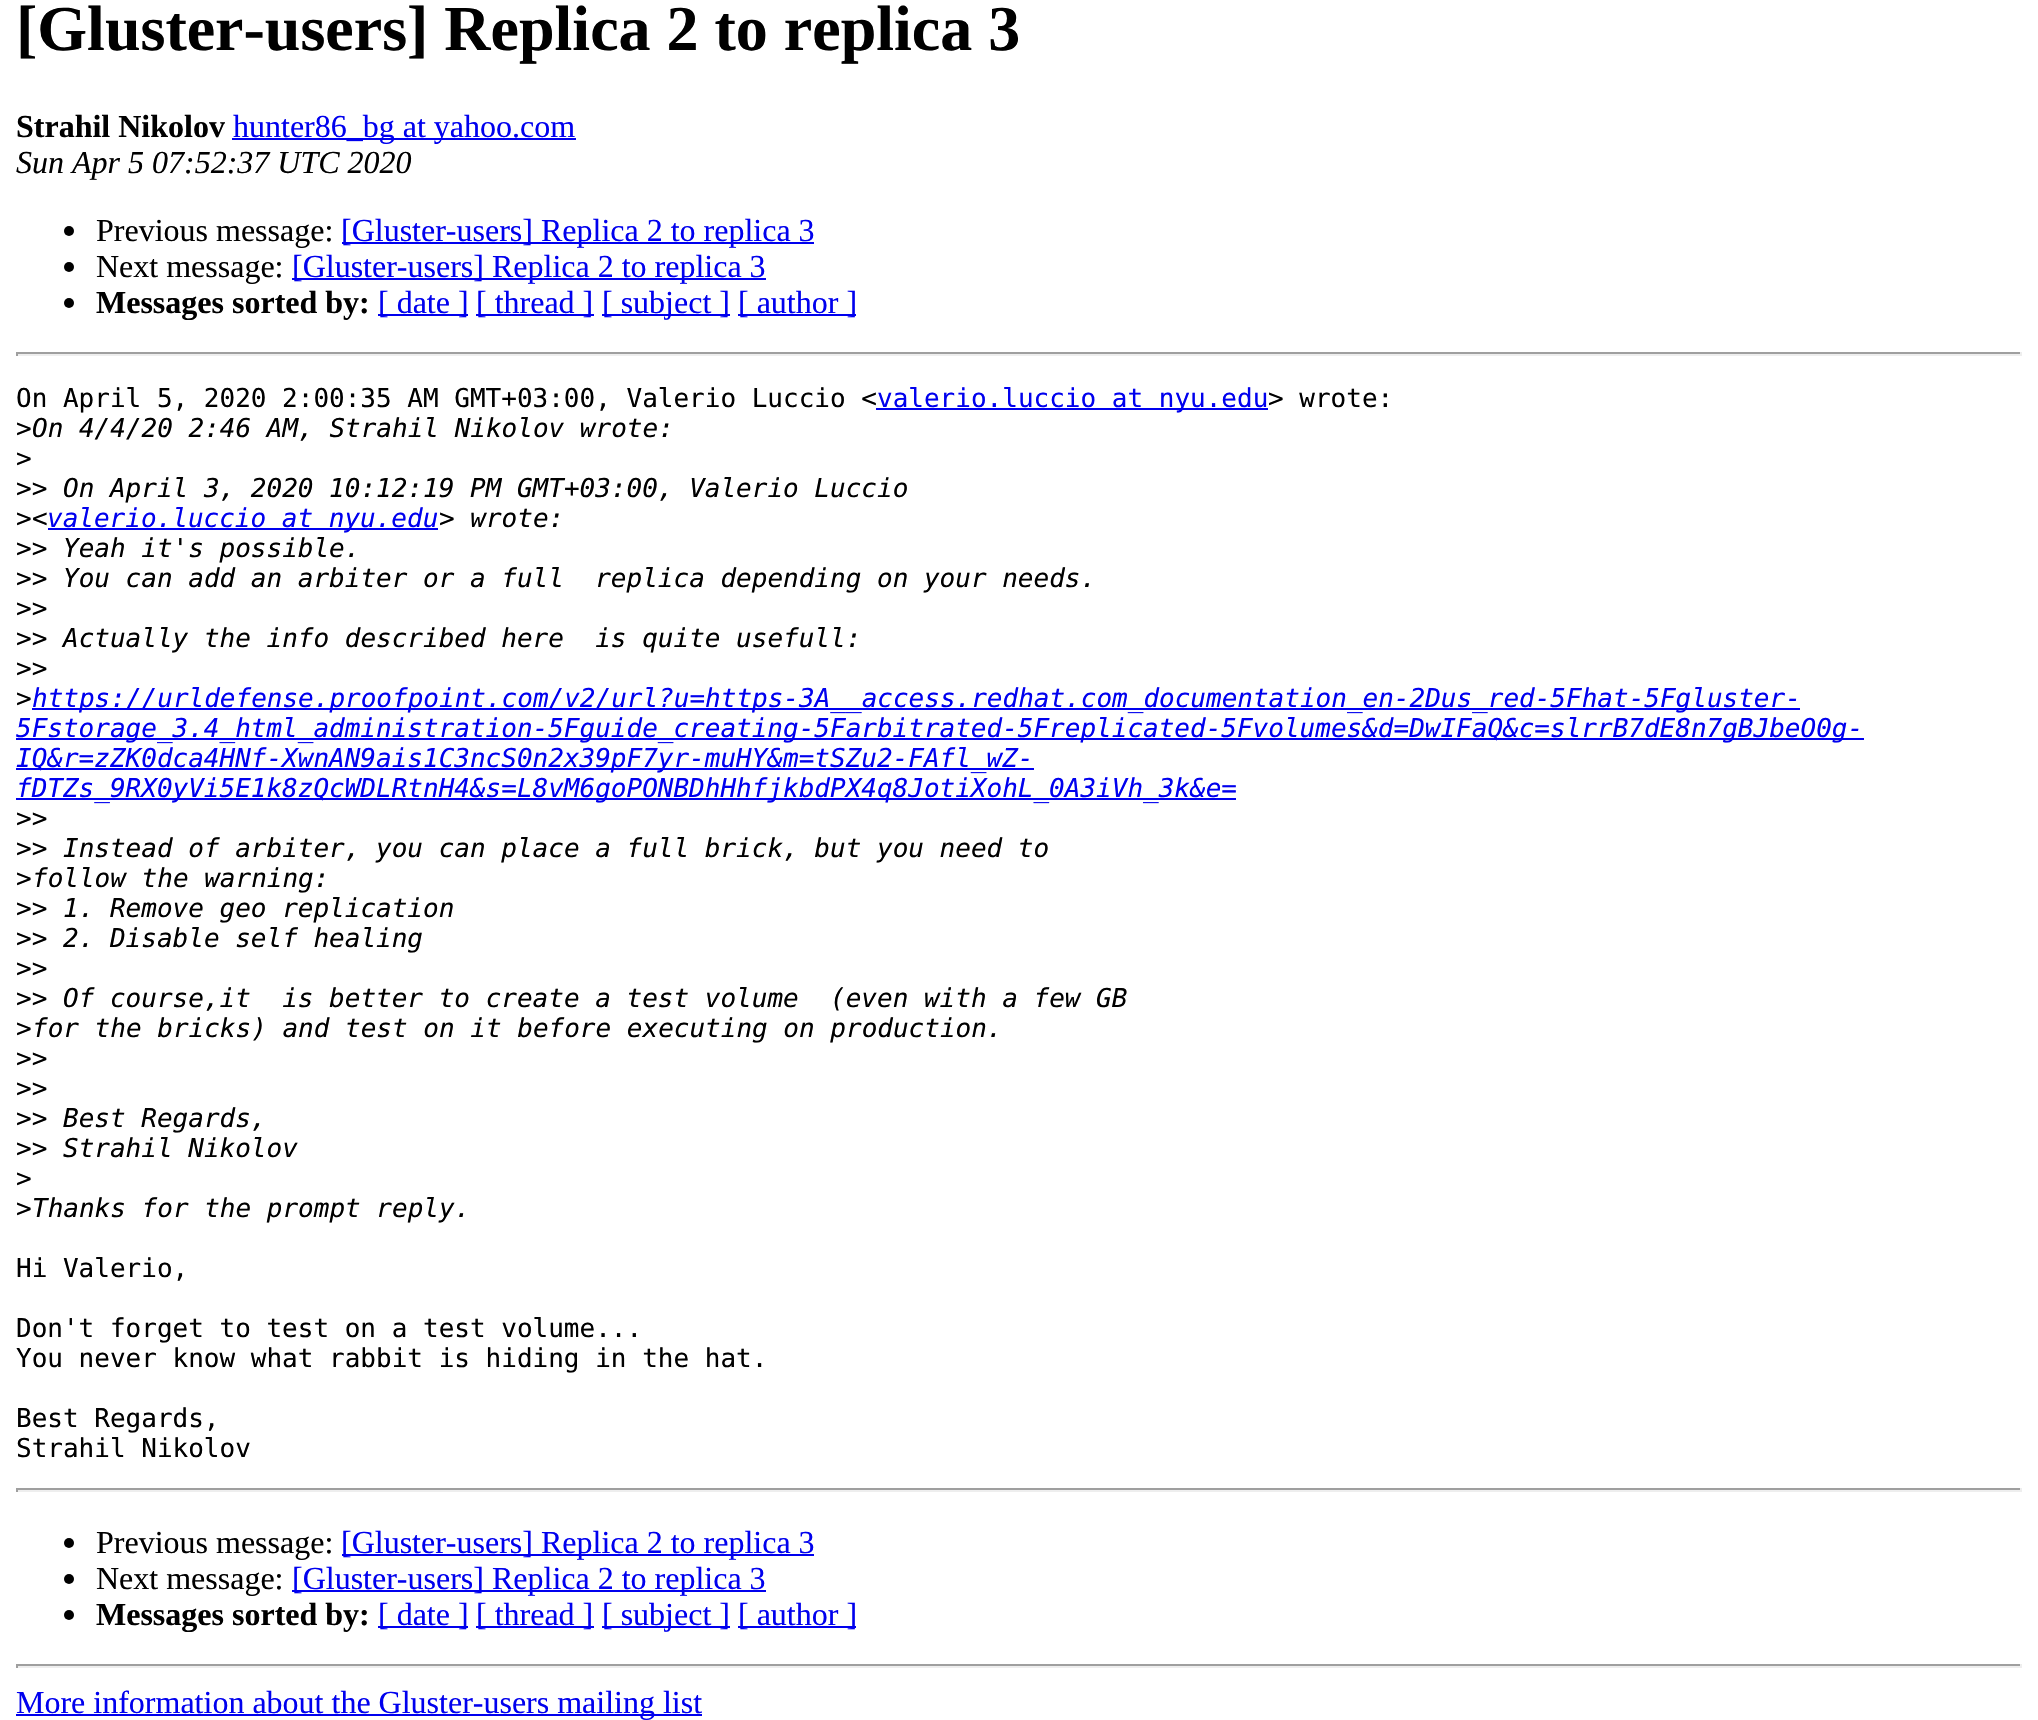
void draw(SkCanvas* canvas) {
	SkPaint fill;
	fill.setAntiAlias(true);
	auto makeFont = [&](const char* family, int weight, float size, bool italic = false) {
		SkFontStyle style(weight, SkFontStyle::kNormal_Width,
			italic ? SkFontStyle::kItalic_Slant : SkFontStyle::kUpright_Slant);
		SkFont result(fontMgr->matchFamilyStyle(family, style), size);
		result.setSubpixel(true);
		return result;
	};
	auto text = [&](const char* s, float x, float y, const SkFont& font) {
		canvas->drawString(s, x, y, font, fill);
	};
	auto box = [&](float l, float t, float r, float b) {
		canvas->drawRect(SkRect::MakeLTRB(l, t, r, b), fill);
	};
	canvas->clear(0xFFFFFFFF);
	fill.setColor(0xFF0000EE);
	box(232, 138, 576, 140);
	fill.setColor(0xFF000000);
	canvas->drawCircle(69, 231, 5, fill);
	fill.setColor(0xFF0000EE);
	box(342, 242, 814, 244);
	fill.setColor(0xFF000000);
	canvas->drawCircle(69, 267, 5, fill);
	fill.setColor(0xFF0000EE);
	box(292, 278, 766, 280);
	fill.setColor(0xFF000000);
	canvas->drawCircle(69, 303, 5, fill);
	fill.setColor(0xFF0000EE);
	box(378, 314, 468, 316);
	box(476, 314, 594, 316);
	box(602, 314, 730, 316);
	box(738, 314, 856, 316);
	fill.setColor(0xFF9F9F9F);
	box(16, 352, 2022, 354);
	fill.setColor(0xFFEEEEEE);
	box(2020, 352, 2022, 356);
	box(16, 354, 2022, 356);
	fill.setColor(0xFF9F9F9F);
	box(16, 352, 18, 356);
	fill.setColor(0xFF0000EE);
	box(876, 408, 1268, 410);
	box(48, 528, 438, 530);
	box(32, 708, 1800, 710);
	box(16, 738, 1864, 740);
	box(16, 768, 1034, 770);
	box(16, 798, 1236, 800);
	fill.setColor(0xFF9F9F9F);
	box(16, 1488, 2022, 1490);
	fill.setColor(0xFFEEEEEE);
	box(2020, 1488, 2022, 1492);
	box(16, 1490, 2022, 1492);
	fill.setColor(0xFF9F9F9F);
	box(16, 1488, 18, 1492);
	fill.setColor(0xFF000000);
	canvas->drawCircle(69, 1543, 5, fill);
	fill.setColor(0xFF0000EE);
	box(342, 1554, 814, 1556);
	fill.setColor(0xFF000000);
	canvas->drawCircle(69, 1579, 5, fill);
	fill.setColor(0xFF0000EE);
	box(292, 1590, 766, 1592);
	fill.setColor(0xFF000000);
	canvas->drawCircle(69, 1615, 5, fill);
	fill.setColor(0xFF0000EE);
	box(378, 1626, 468, 1628);
	box(476, 1626, 594, 1628);
	box(602, 1626, 730, 1628);
	box(738, 1626, 856, 1628);
	fill.setColor(0xFF9F9F9F);
	box(16, 1664, 2022, 1666);
	fill.setColor(0xFFEEEEEE);
	box(2020, 1664, 2022, 1668);
	box(16, 1666, 2022, 1668);
	fill.setColor(0xFF9F9F9F);
	box(16, 1664, 18, 1668);
	fill.setColor(0xFF0000EE);
	box(16, 1714, 702, 1716);
	auto font1 = makeFont("Liberation Serif", 700, 64);
	fill.setColor(0xFF000000);
	text("[Gluster-users] Replica 2 to replica 3", 16, 50, font1);
	auto font2 = makeFont("Liberation Serif", 700, 32);
	text("Strahil Nikolov", 16, 137, font2);
	auto font3 = makeFont("Liberation Serif", 400, 32);
	fill.setColor(0xFF0000EE);
	text("hunter86_bg at yahoo.com", 233, 137, font3);
	auto font4 = makeFont("Liberation Serif", 400, 32, true);
	fill.setColor(0xFF000000);
	text("Sun Apr 5 07:52:37 UTC 2020", 16, 173, font4);
	text("Previous message:", 96, 241, font3);
	fill.setColor(0xFF0000EE);
	text("[Gluster-users] Replica 2 to replica 3", 341, 241, font3);
	fill.setColor(0xFF000000);
	text("Next message:", 96, 277, font3);
	fill.setColor(0xFF0000EE);
	text("[Gluster-users] Replica 2 to replica 3", 292, 277, font3);
	fill.setColor(0xFF000000);
	text("Messages sorted by:", 96, 313, font2);
	fill.setColor(0xFF0000EE);
	text("[ date ]", 378, 313, font3);
	text("[ thread ]", 476, 313, font3);
	text("[ subject ]", 602, 313, font3);
	text("[ author ]", 738, 313, font3);
	auto font5 = makeFont("DejaVu Sans Mono", 400, 26);
	fill.setColor(0xFF000000);
	text("On April 5, 2020 2:00:35 AM GMT+03:00, Valerio Luccio <", 16, 407, font5);
	fill.setColor(0xFF0000EE);
	text("valerio.luccio at nyu.edu", 877, 407, font5);
	fill.setColor(0xFF000000);
	text("> wrote:", 1268, 407, font5);
	text(">", 16, 437, font5);
	auto font6 = makeFont("DejaVu Sans Mono", 400, 26, true);
	text("On 4/4/20 2:46 AM, Strahil Nikolov wrote:", 32, 437, font6);
	text(">", 16, 467, font5);
	text(">>", 16, 497, font5);
	text("On April 3, 2020 10:12:19 PM GMT+03:00, Valerio Luccio", 63, 497, font6);
	text(">", 16, 527, font5);
	text("<", 32, 527, font6);
	fill.setColor(0xFF0000EE);
	text("valerio.luccio at nyu.edu", 47, 527, font6);
	fill.setColor(0xFF000000);
	text("> wrote:", 439, 527, font6);
	text(">>", 16, 557, font5);
	text("Yeah it's possible.", 63, 557, font6);
	text(">>", 16, 587, font5);
	text("You can add an arbiter or a full  replica depending on your needs.", 63, 587, font6);
	text(">>", 16, 617, font5);
	text(">>", 16, 647, font5);
	text("Actually the info described here  is quite usefull:", 63, 647, font6);
	text(">>", 16, 677, font5);
	text(">", 16, 707, font5);
	fill.setColor(0xFF0000EE);
	text("https://urldefense.proofpoint.com/v2/url?u=https-3A__access.redhat.com_documentation_en-2Dus_red-5Fhat-5Fgluster-", 32, 707, font6);
	text("5Fstorage_3.4_html_administration-5Fguide_creating-5Farbitrated-5Freplicated-5Fvolumes&d=DwIFaQ&c=slrrB7dE8n7gBJbeO0g-", 16, 737, font6);
	text("IQ&r=zZK0dca4HNf-XwnAN9ais1C3ncS0n2x39pF7yr-muHY&m=tSZu2-FAfl_wZ-", 16, 767, font6);
	text("fDTZs_9RX0yVi5E1k8zQcWDLRtnH4&s=L8vM6goPONBDhHhfjkbdPX4q8JotiXohL_0A3iVh_3k&e=", 16, 797, font6);
	fill.setColor(0xFF000000);
	text(">>", 16, 827, font5);
	text(">>", 16, 857, font5);
	text("Instead of arbiter, you can place a full brick, but you need to", 63, 857, font6);
	text(">", 16, 887, font5);
	text("follow the warning:", 32, 887, font6);
	text(">>", 16, 917, font5);
	text("1. Remove geo replication", 63, 917, font6);
	text(">>", 16, 947, font5);
	text("2. Disable self healing", 63, 947, font6);
	text(">>", 16, 977, font5);
	text(">>", 16, 1007, font5);
	text("Of course,it  is better to create a test volume  (even with a few GB", 63, 1007, font6);
	text(">", 16, 1037, font5);
	text("for the bricks) and test on it before executing on production.", 32, 1037, font6);
	text(">>", 16, 1067, font5);
	text(">>", 16, 1097, font5);
	text(">>", 16, 1127, font5);
	text("Best Regards,", 63, 1127, font6);
	text(">>", 16, 1157, font5);
	text("Strahil Nikolov", 63, 1157, font6);
	text(">", 16, 1187, font5);
	text(">", 16, 1217, font5);
	text("Thanks for the prompt reply.", 32, 1217, font6);
	text("Hi Valerio,", 16, 1277, font5);
	text("Don't forget to test on a test volume...", 16, 1337, font5);
	text("You never know what rabbit is hiding in the hat.", 16, 1367, font5);
	text("Best Regards,", 16, 1427, font5);
	text("Strahil Nikolov", 16, 1457, font5);
	text("Previous message:", 96, 1553, font3);
	fill.setColor(0xFF0000EE);
	text("[Gluster-users] Replica 2 to replica 3", 341, 1553, font3);
	fill.setColor(0xFF000000);
	text("Next message:", 96, 1589, font3);
	fill.setColor(0xFF0000EE);
	text("[Gluster-users] Replica 2 to replica 3", 292, 1589, font3);
	fill.setColor(0xFF000000);
	text("Messages sorted by:", 96, 1625, font2);
	fill.setColor(0xFF0000EE);
	text("[ date ]", 378, 1625, font3);
	text("[ thread ]", 476, 1625, font3);
	text("[ subject ]", 602, 1625, font3);
	text("[ author ]", 738, 1625, font3);
	text("More information about the Gluster-users mailing list", 16, 1713, font3);
}
